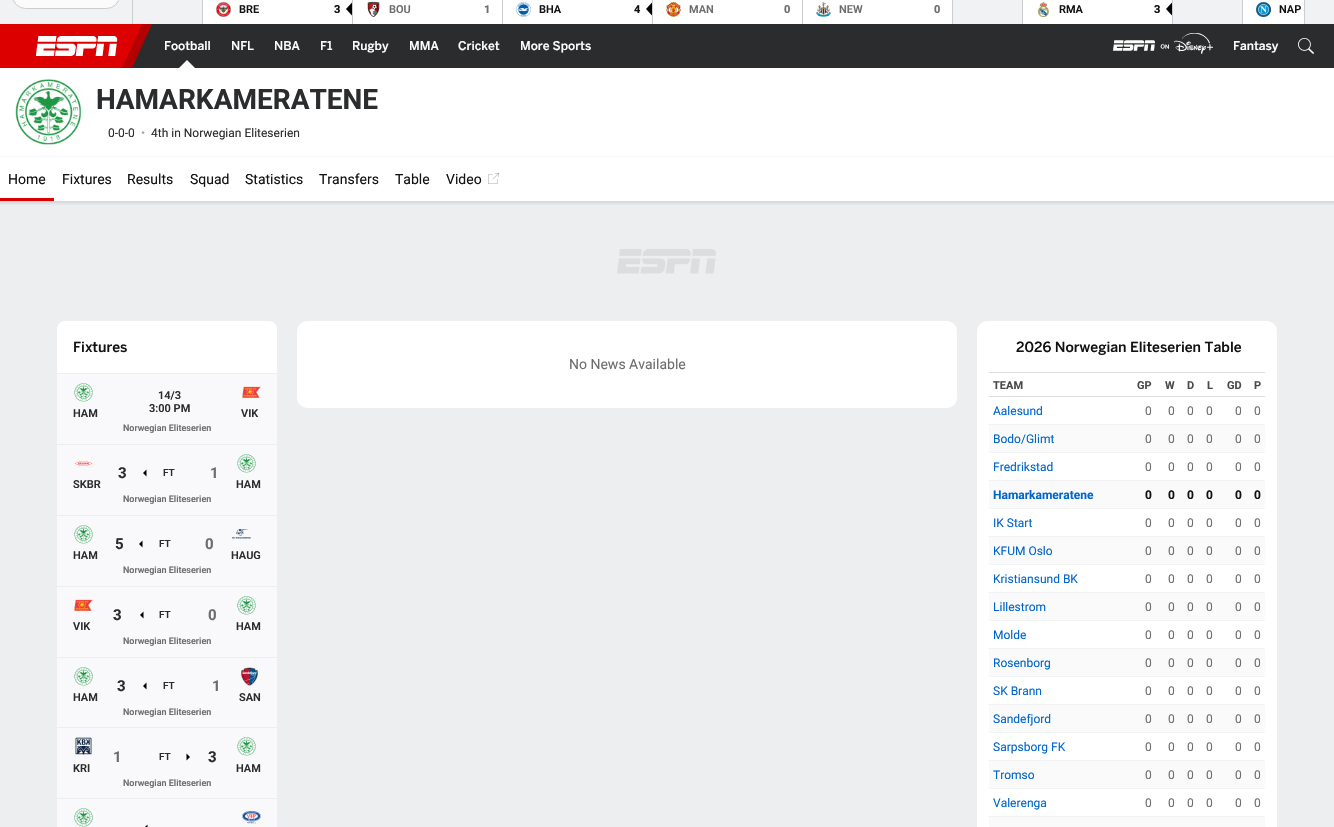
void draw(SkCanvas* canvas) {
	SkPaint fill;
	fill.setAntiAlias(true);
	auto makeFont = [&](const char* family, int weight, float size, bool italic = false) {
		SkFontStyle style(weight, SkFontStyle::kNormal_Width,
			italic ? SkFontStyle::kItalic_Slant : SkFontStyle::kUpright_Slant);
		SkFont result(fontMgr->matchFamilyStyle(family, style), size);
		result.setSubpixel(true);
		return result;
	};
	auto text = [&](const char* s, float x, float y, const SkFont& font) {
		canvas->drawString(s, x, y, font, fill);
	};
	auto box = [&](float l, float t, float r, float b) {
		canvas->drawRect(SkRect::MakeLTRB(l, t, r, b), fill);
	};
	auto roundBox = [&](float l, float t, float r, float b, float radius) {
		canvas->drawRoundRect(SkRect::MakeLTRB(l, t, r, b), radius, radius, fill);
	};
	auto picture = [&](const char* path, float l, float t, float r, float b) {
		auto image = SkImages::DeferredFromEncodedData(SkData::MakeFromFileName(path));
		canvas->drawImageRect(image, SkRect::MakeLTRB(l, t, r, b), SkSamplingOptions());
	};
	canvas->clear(0xFFEDEEF0);
	fill.setColor(0xFFF1F2F3);
	box(0, 0, 1334, 24);
	fill.setColor(0xFFCBCCCE);
	box(132, 0, 133, 24);
	fill.setColor(0xFFFBFBFB);
	canvas->drawRoundRect(SkRect::MakeLTRB(12.5f, -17.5f, 119.5f, 8.5f), 16.5f, 16.5f, fill);
	fill.setStyle(SkPaint::kStroke_Style);
	fill.setStrokeWidth(1);
	fill.setColor(0xFFCBCCCE);
	canvas->drawRoundRect(SkRect::MakeLTRB(12.5f, -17.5f, 119.5f, 8.5f), 16.5f, 16.5f, fill);
	fill.setStyle(SkPaint::kFill_Style);
	box(202, 0, 203, 24);
	fill.setColor(0xFFFFFFFF);
	box(203, 0, 352, 24);
	fill.setColor(0xFFCBCCCE);
	box(352, 0, 353, 24);
	picture("image0.png", 216, 2, 231, 17);
	fill.setColor(0xFF000000);
	canvas->drawPath(SkPathBuilder().moveTo(346, 9).lineTo(352, 15.5f).lineTo(352, 2.5f).close().detach(), fill);
	fill.setColor(0xFFFFFFFF);
	box(353, 0, 502, 24);
	fill.setColor(0xFFCBCCCE);
	box(502, 0, 503, 24);
	picture("image1.png", 367, 1, 380, 17);
	fill.setColor(0xFFFFFFFF);
	box(503, 0, 652, 24);
	fill.setColor(0xFFCBCCCE);
	box(652, 0, 653, 24);
	picture("image2.png", 516, 2, 531, 17);
	fill.setColor(0xFF000000);
	canvas->drawPath(SkPathBuilder().moveTo(646, 9).lineTo(652, 15.5f).lineTo(652, 2.5f).close().detach(), fill);
	fill.setColor(0xFFFFFFFF);
	box(653, 0, 802, 24);
	fill.setColor(0xFFCBCCCE);
	box(802, 0, 803, 24);
	picture("image3.png", 666, 2, 681, 17);
	fill.setColor(0xFFFFFFFF);
	box(803, 0, 952, 24);
	fill.setColor(0xFFCBCCCE);
	box(952, 0, 953, 24);
	picture("image4.png", 816, 2, 831, 17);
	box(1022, 0, 1023, 24);
	fill.setColor(0xFFFFFFFF);
	box(1023, 0, 1172, 24);
	fill.setColor(0xFFCBCCCE);
	box(1172, 0, 1173, 24);
	picture("image5.png", 1038, 2, 1049, 17);
	fill.setColor(0xFF000000);
	canvas->drawPath(SkPathBuilder().moveTo(1166, 9).lineTo(1172, 15.5f).lineTo(1172, 2.5f).close().detach(), fill);
	fill.setColor(0xFFCBCCCE);
	box(1242, 0, 1243, 24);
	fill.setColor(0xFFFFFFFF);
	box(1243, 0, 1304, 24);
	picture("image6.png", 1256, 2, 1271, 17);
	fill.setColor(0xFFCBCCCE);
	box(1304, 0, 1305, 24);
	fill.setColor(0xFF2B2C2D);
	box(132, 24, 1334, 68);
	fill.setColor(0xFFB40000);
	canvas->drawPath(SkPathBuilder().moveTo(22, 24).lineTo(152, 24).lineTo(132, 68).lineTo(2, 68).close().detach(), fill);
	fill.setColor(0xFFDD0000);
	canvas->drawPath(SkPathBuilder().moveTo(-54, 24).lineTo(142, 24).lineTo(122, 68).lineTo(-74, 68).close().detach(), fill);
	picture("image7.png", 36, 36, 118, 56);
	fill.setColor(0xFFFFFFFF);
	canvas->drawPath(SkPathBuilder().moveTo(195, 68).lineTo(179, 68).lineTo(187, 60).close().detach(), fill);
	picture("image8.png", 1113, 33, 1213, 54);
	picture("image9.png", 1298, 38, 1314, 54);
	box(0, 68, 1334, 156);
	fill.setColor(0xFFF9F9FB);
	box(0, 156, 1334, 157);
	picture("image10.png", 15, 79, 81, 145);
	fill.setColor(0xFFFFFFFF);
	box(0, 157, 1334, 201);
	fill.setColor(0xFFDD0000);
	box(0, 198, 54, 201);
	picture("image11.png", 488, 173, 499, 184);
	{
		const SkColor colors[] = {0xFFD5D6D8, 0xFFEDEEF0};
		const float stops[] = {0, 1};
		const SkPoint ends[] = {{667, 201}, {667, 206}};
		fill.setShader(SkGradientShader::MakeLinear(ends, colors, stops, 2, SkTileMode::kClamp));
		fill.setAlpha(255);
	}
	box(0, 201, 1334, 205);
	picture("image12.png", 617, 249, 716, 274);
	fill.setShader(nullptr);
	fill.setColor(0xFFFFFFFF);
	canvas->drawPath(SkPathBuilder().moveTo(65, 321).lineTo(269, 321).cubicTo(273.5f, 321, 277, 324.5f, 277, 329).lineTo(277, 373).lineTo(57, 373).lineTo(57, 329).cubicTo(57, 324.5f, 60.5f, 321, 65, 321).close().detach(), fill);
	fill.setColor(0xFFF9F9FB);
	box(57, 374, 277, 444);
	picture("image13.png", 74, 383, 93, 402);
	picture("image14.png", 242, 386, 261, 398);
	box(57, 445, 277, 515);
	fill.setColor(0xFF000000);
	canvas->drawPath(SkPathBuilder().moveTo(143, 473).lineTo(146.5f, 476.5f).lineTo(146.5f, 469.5f).close().detach(), fill);
	picture("image15.png", 74, 461, 93, 466);
	picture("image13.png", 237, 454, 256, 473);
	fill.setColor(0xFFF9F9FB);
	box(57, 516, 277, 586);
	fill.setColor(0xFF000000);
	canvas->drawPath(SkPathBuilder().moveTo(139, 544).lineTo(142.5f, 547.5f).lineTo(142.5f, 540.5f).close().detach(), fill);
	picture("image13.png", 74, 525, 93, 544);
	picture("image16.png", 232, 529, 251, 539);
	fill.setColor(0xFFF9F9FB);
	box(57, 587, 277, 657);
	fill.setColor(0xFF000000);
	canvas->drawPath(SkPathBuilder().moveTo(140, 615).lineTo(143.5f, 618.5f).lineTo(143.5f, 611.5f).close().detach(), fill);
	picture("image14.png", 74, 599, 93, 611);
	picture("image13.png", 237, 596, 256, 615);
	fill.setColor(0xFFF9F9FB);
	box(57, 658, 277, 727);
	fill.setColor(0xFF000000);
	canvas->drawPath(SkPathBuilder().moveTo(143, 686).lineTo(146.5f, 689.5f).lineTo(146.5f, 682.5f).close().detach(), fill);
	picture("image13.png", 74, 667, 93, 686);
	picture("image17.png", 241, 667, 258, 686);
	fill.setColor(0xFFF9F9FB);
	box(57, 728, 277, 798);
	picture("image18.png", 75, 737, 92, 755);
	fill.setColor(0xFF000000);
	canvas->drawPath(SkPathBuilder().moveTo(186.5f, 760.5f).lineTo(190, 757).lineTo(186.5f, 753.5f).close().detach(), fill);
	picture("image13.png", 237, 737, 256, 756);
	fill.setColor(0xFFF9F9FB);
	box(57, 799, 277, 827);
	picture("image13.png", 74, 808, 93, 827);
	fill.setColor(0xFF000000);
	canvas->drawPath(SkPathBuilder().moveTo(144, 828).lineTo(147.5f, 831.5f).lineTo(147.5f, 824.5f).close().detach(), fill);
	picture("image19.png", 242, 810, 261, 824);
	fill.setColor(0xFFFFFFFF);
	roundBox(297, 321, 957, 408, 10);
	roundBox(977, 321, 1277, 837, 10);
	fill.setColor(0xFFDCDDDF);
	box(989, 372, 1265, 373);
	box(989, 396, 1265, 397);
	fill.setColor(0xFFF1F2F3);
	box(989, 424, 1265, 425);
	fill.setColor(0xFFFAFAFA);
	box(989, 425, 1265, 452);
	fill.setColor(0xFFF1F2F3);
	box(989, 452, 1265, 453);
	box(989, 480, 1265, 481);
	fill.setColor(0xFFFAFAFA);
	box(989, 481, 1265, 508);
	fill.setColor(0xFFF1F2F3);
	box(989, 508, 1265, 509);
	box(989, 536, 1265, 537);
	fill.setColor(0xFFFAFAFA);
	box(989, 537, 1265, 564);
	fill.setColor(0xFFF1F2F3);
	box(989, 564, 1265, 565);
	box(989, 592, 1265, 593);
	fill.setColor(0xFFFAFAFA);
	box(989, 593, 1265, 620);
	fill.setColor(0xFFF1F2F3);
	box(989, 620, 1265, 621);
	box(989, 648, 1265, 649);
	fill.setColor(0xFFFAFAFA);
	box(989, 649, 1265, 676);
	fill.setColor(0xFFF1F2F3);
	box(989, 676, 1265, 677);
	box(989, 704, 1265, 705);
	fill.setColor(0xFFFAFAFA);
	box(989, 705, 1265, 732);
	fill.setColor(0xFFF1F2F3);
	box(989, 732, 1265, 733);
	box(989, 760, 1265, 761);
	fill.setColor(0xFFFAFAFA);
	box(989, 761, 1265, 788);
	fill.setColor(0xFFF1F2F3);
	box(989, 788, 1265, 789);
	box(989, 816, 1265, 817);
	fill.setColor(0xFFFAFAFA);
	box(989, 817, 1265, 827);
	auto font1 = makeFont("Roboto", 600, 11);
	fill.setColor(0xFF121213);
	text("BRE", 239, 13, font1);
	auto font2 = makeFont("Roboto", 800, 11);
	text("3", 334, 13, font2);
	fill.setColor(0xFF6C6D6F);
	text("BOU", 389, 13, font1);
	text("1", 484, 13, font2);
	fill.setColor(0xFF121213);
	text("BHA", 539, 13, font1);
	text("4", 634, 13, font2);
	fill.setColor(0xFF6C6D6F);
	text("MAN", 689, 13, font1);
	text("0", 784, 13, font2);
	text("NEW", 839, 13, font1);
	text("0", 934, 13, font2);
	fill.setColor(0xFF121213);
	text("RMA", 1059, 13, font1);
	text("3", 1154, 13, font2);
	text("NAP", 1279, 13, font1);
	auto font3 = makeFont("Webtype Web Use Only", 500, 12);
	fill.setColor(0xFFFFFFFF);
	text("Football", 164, 50, font3);
	text("NFL", 231, 50, font3);
	text("NBA", 274, 50, font3);
	text("F1", 320, 50, font3);
	text("Rugby", 352, 50, font3);
	text("MMA", 409, 50, font3);
	text("Cricket", 458, 50, font3);
	text("More Sports", 520, 50, font3);
	text("Fantasy", 1233, 50, font3);
	auto font4 = makeFont("Roboto", 700, 28);
	fill.setColor(0xFF2B2C2D);
	text("HAMARKAMERATENE", 96, 109, font4);
	auto font5 = makeFont("Roboto", 400, 12);
	text("0-0-0", 108, 137, font5);
	fill.setColor(0xFFA5A6A7);
	text("•", 141, 137, font5);
	fill.setColor(0xFF2B2C2D);
	text("4th in Norwegian Eliteserien", 151, 137, font5);
	auto font6 = makeFont("Roboto", 400, 14);
	fill.setColor(0xFF121213);
	text("Home", 8, 184, font6);
	text("Fixtures", 62, 184, font6);
	text("Results", 127, 184, font6);
	text("Squad", 190, 184, font6);
	text("Statistics", 245, 184, font6);
	text("Transfers", 319, 184, font6);
	text("Table", 395, 184, font6);
	text("Video", 446, 184, font6);
	auto font7 = makeFont("Webtype Web Use Only", 500, 14);
	text("Fixtures", 73, 352, font7);
	fill.setColor(0xFF2B2C2D);
	text("HAM", 73, 417, font1);
	text("14/3", 158, 399, font1);
	text("3:00 PM", 149, 412, font1);
	text("VIK", 241, 417, font1);
	auto font8 = makeFont("Roboto", 600, 9);
	fill.setColor(0xFF6C6D6F);
	text("Norwegian Eliteserien", 123, 431, font8);
	auto font9 = makeFont("Roboto", 700, 15);
	fill.setColor(0xFF2B2C2D);
	text("3", 118, 478, font9);
	text("SKBR", 73, 488, font1);
	auto font10 = makeFont("Roboto", 600, 10);
	text("FT", 163, 476, font10);
	fill.setColor(0xFF6C6D6F);
	text("1", 210, 478, font9);
	fill.setColor(0xFF2B2C2D);
	text("HAM", 236, 488, font1);
	fill.setColor(0xFF6C6D6F);
	text("Norwegian Eliteserien", 123, 502, font8);
	fill.setColor(0xFF2B2C2D);
	text("5", 115, 549, font9);
	text("HAM", 73, 559, font1);
	text("FT", 159, 547, font10);
	fill.setColor(0xFF6C6D6F);
	text("0", 205, 549, font9);
	fill.setColor(0xFF2B2C2D);
	text("HAUG", 231, 559, font1);
	fill.setColor(0xFF6C6D6F);
	text("Norwegian Eliteserien", 123, 573, font8);
	fill.setColor(0xFF2B2C2D);
	text("3", 113, 620, font9);
	text("VIK", 73, 630, font1);
	text("FT", 159, 618, font10);
	fill.setColor(0xFF6C6D6F);
	text("0", 208, 620, font9);
	fill.setColor(0xFF2B2C2D);
	text("HAM", 236, 630, font1);
	fill.setColor(0xFF6C6D6F);
	text("Norwegian Eliteserien", 123, 644, font8);
	fill.setColor(0xFF2B2C2D);
	text("3", 117, 691, font9);
	text("HAM", 73, 701, font1);
	text("FT", 163, 689, font10);
	fill.setColor(0xFF6C6D6F);
	text("1", 212, 691, font9);
	fill.setColor(0xFF2B2C2D);
	text("SAN", 239, 701, font1);
	fill.setColor(0xFF6C6D6F);
	text("Norwegian Eliteserien", 123, 715, font8);
	text("1", 113, 762, font9);
	fill.setColor(0xFF2B2C2D);
	text("KRI", 73, 772, font1);
	text("FT", 159, 760, font10);
	text("3", 208, 762, font9);
	text("HAM", 236, 772, font1);
	fill.setColor(0xFF6C6D6F);
	text("Norwegian Eliteserien", 123, 786, font8);
	text("No News Available", 569, 369, font6);
	fill.setColor(0xFF121213);
	text("2026 Norwegian Eliteserien Table", 1016, 352, font7);
	auto font11 = makeFont("Roboto", 700, 11);
	fill.setColor(0xFF48494A);
	text("TEAM", 993, 389, font11);
	text("GP", 1137, 389, font11);
	text("W", 1165, 389, font11);
	text("D", 1187, 389, font11);
	text("L", 1207, 389, font11);
	text("GD", 1227, 389, font11);
	text("P", 1254, 389, font11);
	fill.setColor(0xFF0066CC);
	text("Aalesund", 993, 415, font5);
	fill.setColor(0xFF6C6D6F);
	text("0", 1145, 415, font5);
	text("0", 1168, 415, font5);
	text("0", 1187, 415, font5);
	text("0", 1206, 415, font5);
	text("0", 1235, 415, font5);
	text("0", 1254, 415, font5);
	fill.setColor(0xFF0066CC);
	text("Bodo/Glimt", 993, 443, font5);
	fill.setColor(0xFF6C6D6F);
	text("0", 1145, 443, font5);
	text("0", 1168, 443, font5);
	text("0", 1187, 443, font5);
	text("0", 1206, 443, font5);
	text("0", 1235, 443, font5);
	text("0", 1254, 443, font5);
	fill.setColor(0xFF0066CC);
	text("Fredrikstad", 993, 471, font5);
	fill.setColor(0xFF6C6D6F);
	text("0", 1145, 471, font5);
	text("0", 1168, 471, font5);
	text("0", 1187, 471, font5);
	text("0", 1206, 471, font5);
	text("0", 1235, 471, font5);
	text("0", 1254, 471, font5);
	auto font12 = makeFont("Roboto", 700, 12);
	fill.setColor(0xFF0066CC);
	text("Hamarkameratene", 993, 499, font12);
	fill.setColor(0xFF121213);
	text("0", 1145, 499, font12);
	text("0", 1168, 499, font12);
	text("0", 1187, 499, font12);
	text("0", 1206, 499, font12);
	text("0", 1235, 499, font12);
	text("0", 1254, 499, font12);
	fill.setColor(0xFF0066CC);
	text("IK Start", 993, 527, font5);
	fill.setColor(0xFF6C6D6F);
	text("0", 1145, 527, font5);
	text("0", 1168, 527, font5);
	text("0", 1187, 527, font5);
	text("0", 1206, 527, font5);
	text("0", 1235, 527, font5);
	text("0", 1254, 527, font5);
	fill.setColor(0xFF0066CC);
	text("KFUM Oslo", 993, 555, font5);
	fill.setColor(0xFF6C6D6F);
	text("0", 1145, 555, font5);
	text("0", 1168, 555, font5);
	text("0", 1187, 555, font5);
	text("0", 1206, 555, font5);
	text("0", 1235, 555, font5);
	text("0", 1254, 555, font5);
	fill.setColor(0xFF0066CC);
	text("Kristiansund BK", 993, 583, font5);
	fill.setColor(0xFF6C6D6F);
	text("0", 1145, 583, font5);
	text("0", 1168, 583, font5);
	text("0", 1187, 583, font5);
	text("0", 1206, 583, font5);
	text("0", 1235, 583, font5);
	text("0", 1254, 583, font5);
	fill.setColor(0xFF0066CC);
	text("Lillestrom", 993, 611, font5);
	fill.setColor(0xFF6C6D6F);
	text("0", 1145, 611, font5);
	text("0", 1168, 611, font5);
	text("0", 1187, 611, font5);
	text("0", 1206, 611, font5);
	text("0", 1235, 611, font5);
	text("0", 1254, 611, font5);
	fill.setColor(0xFF0066CC);
	text("Molde", 993, 639, font5);
	fill.setColor(0xFF6C6D6F);
	text("0", 1145, 639, font5);
	text("0", 1168, 639, font5);
	text("0", 1187, 639, font5);
	text("0", 1206, 639, font5);
	text("0", 1235, 639, font5);
	text("0", 1254, 639, font5);
	fill.setColor(0xFF0066CC);
	text("Rosenborg", 993, 667, font5);
	fill.setColor(0xFF6C6D6F);
	text("0", 1145, 667, font5);
	text("0", 1168, 667, font5);
	text("0", 1187, 667, font5);
	text("0", 1206, 667, font5);
	text("0", 1235, 667, font5);
	text("0", 1254, 667, font5);
	fill.setColor(0xFF0066CC);
	text("SK Brann", 993, 695, font5);
	fill.setColor(0xFF6C6D6F);
	text("0", 1145, 695, font5);
	text("0", 1168, 695, font5);
	text("0", 1187, 695, font5);
	text("0", 1206, 695, font5);
	text("0", 1235, 695, font5);
	text("0", 1254, 695, font5);
	fill.setColor(0xFF0066CC);
	text("Sandefjord", 993, 723, font5);
	fill.setColor(0xFF6C6D6F);
	text("0", 1145, 723, font5);
	text("0", 1168, 723, font5);
	text("0", 1187, 723, font5);
	text("0", 1206, 723, font5);
	text("0", 1235, 723, font5);
	text("0", 1254, 723, font5);
	fill.setColor(0xFF0066CC);
	text("Sarpsborg FK", 993, 751, font5);
	fill.setColor(0xFF6C6D6F);
	text("0", 1145, 751, font5);
	text("0", 1168, 751, font5);
	text("0", 1187, 751, font5);
	text("0", 1206, 751, font5);
	text("0", 1235, 751, font5);
	text("0", 1254, 751, font5);
	fill.setColor(0xFF0066CC);
	text("Tromso", 993, 779, font5);
	fill.setColor(0xFF6C6D6F);
	text("0", 1145, 779, font5);
	text("0", 1168, 779, font5);
	text("0", 1187, 779, font5);
	text("0", 1206, 779, font5);
	text("0", 1235, 779, font5);
	text("0", 1254, 779, font5);
	fill.setColor(0xFF0066CC);
	text("Valerenga", 993, 807, font5);
	fill.setColor(0xFF6C6D6F);
	text("0", 1145, 807, font5);
	text("0", 1168, 807, font5);
	text("0", 1187, 807, font5);
	text("0", 1206, 807, font5);
	text("0", 1235, 807, font5);
	text("0", 1254, 807, font5);
}
